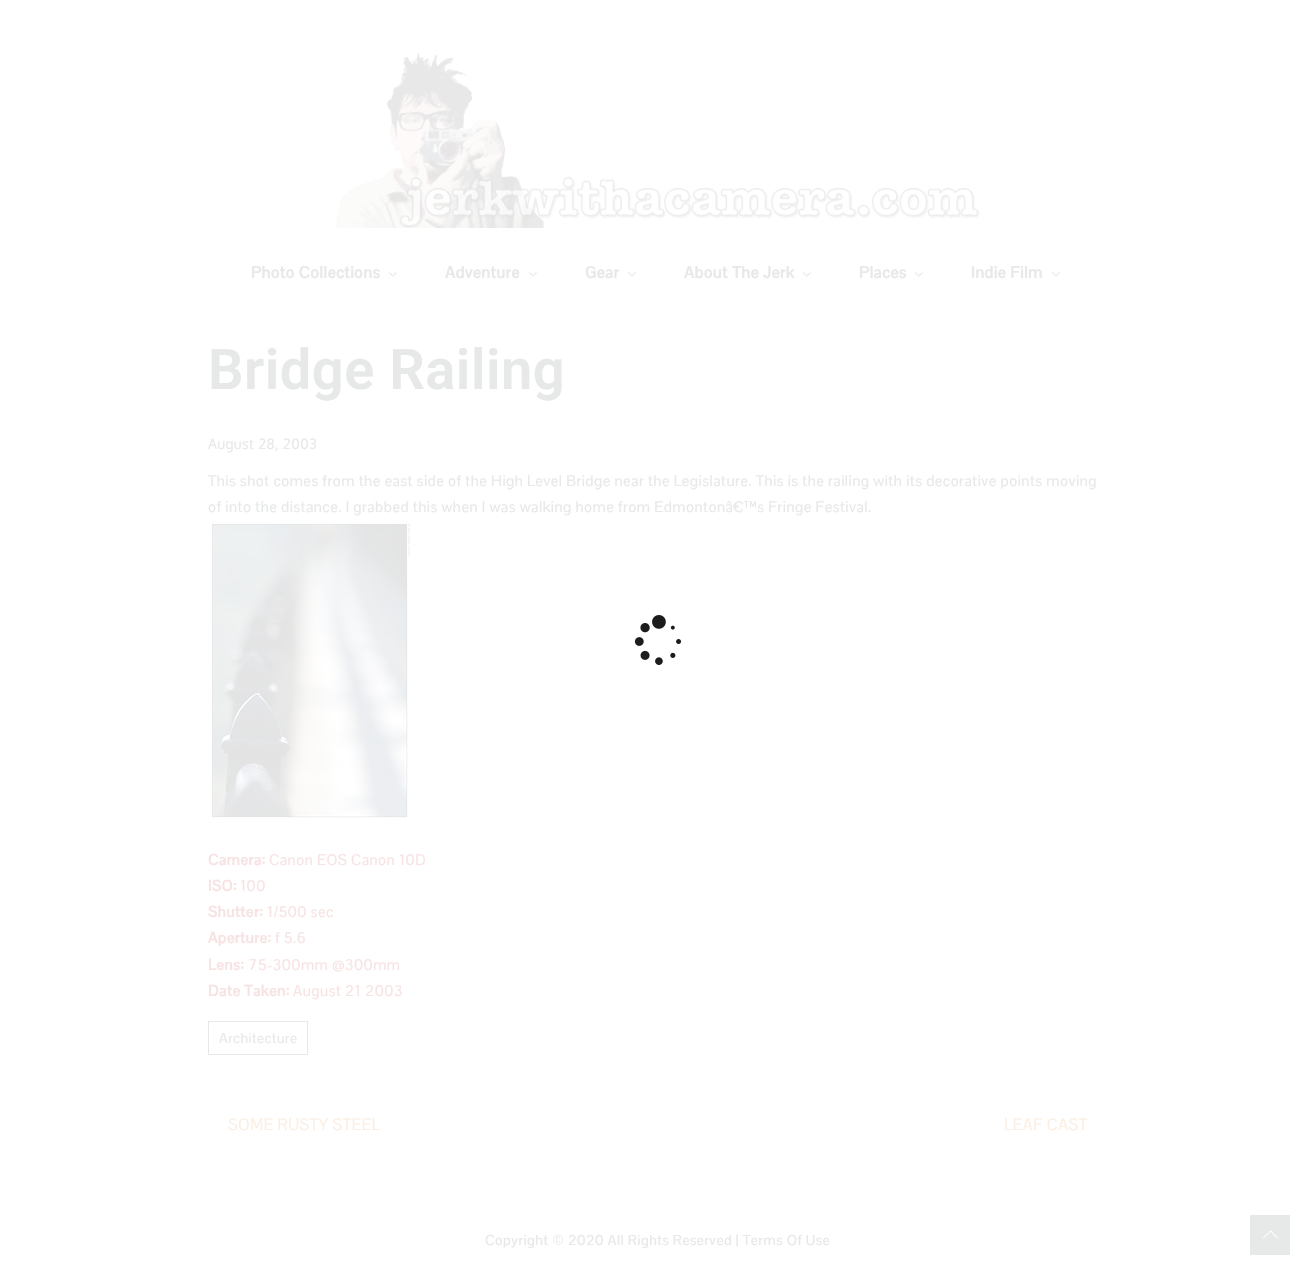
void draw(SkCanvas* canvas) {
	SkPaint fill;
	fill.setAntiAlias(true);
	auto makeFont = [&](const char* family, int weight, float size, bool italic = false) {
		SkFontStyle style(weight, SkFontStyle::kNormal_Width,
			italic ? SkFontStyle::kItalic_Slant : SkFontStyle::kUpright_Slant);
		SkFont result(fontMgr->matchFamilyStyle(family, style), size);
		result.setSubpixel(true);
		return result;
	};
	auto spacedText = [&](const char* s, float x, float y, const SkFont& font, const SkPaint& ink, float letter, float word) {
		std::vector<SkGlyphID> glyphs(font.countText(s, strlen(s), SkTextEncoding::kUTF8));
		std::vector<float> xs(glyphs.size());
		font.textToGlyphs(s, strlen(s), SkTextEncoding::kUTF8, glyphs);
		font.getXPos(glyphs, xs, x);
		float extra = 0;
		for (size_t i = 0; i < glyphs.size(); i++) {
			xs[i] += extra;
			extra += letter + word * (glyphs[i] == font.unicharToGlyph(' '));
		}
		canvas->drawTextBlob(SkTextBlob::MakeFromPosHGlyphs(glyphs, xs, y, font), 0, 0, ink);
	};
	auto box = [&](float l, float t, float r, float b) {
		canvas->drawRect(SkRect::MakeLTRB(l, t, r, b), fill);
	};
	auto picture = [&](const char* path, float l, float t, float r, float b) {
		auto image = SkImages::DeferredFromEncodedData(SkData::MakeFromFileName(path));
		canvas->drawImageRect(image, SkRect::MakeLTRB(l, t, r, b), SkSamplingOptions());
	};
	canvas->clear(0xFFFFFFFF);
	picture("image0.png", 335, 53, 981, 228);
	picture("image1.png", 389, 272, 397, 277);
	picture("image1.png", 529, 272, 537, 277);
	picture("image1.png", 628, 272, 636, 277);
	picture("image1.png", 803, 272, 811, 277);
	picture("image1.png", 915, 272, 923, 277);
	picture("image1.png", 1052, 272, 1060, 277);
	picture("image2.png", 208, 520, 410, 820);
	fill.setStyle(SkPaint::kStroke_Style);
	fill.setStrokeWidth(1);
	fill.setColor(0xFFE7E8E8);
	canvas->drawRect(SkRect::MakeLTRB(208.5f, 1021.5f, 307.5f, 1054.5f), fill);
	picture("image3.png", 634, 615, 682, 665);
	fill.setStyle(SkPaint::kFill_Style);
	box(1250, 1215, 1290, 1255);
	picture("image4.png", 1263, 1230, 1278, 1239);
	auto font1 = makeFont("Pontano Sans", 700, 16);
	spacedText("Photo Collections", 251, 278, font1, fill, 0.5f, 0);
	spacedText("Adventure", 445, 278, font1, fill, 0.5f, 0);
	spacedText("Gear", 585, 278, font1, fill, 0.5f, 0);
	spacedText("About The Jerk", 684, 278, font1, fill, 0.5f, 0);
	spacedText("Places", 859, 278, font1, fill, 0.5f, 0);
	spacedText("Indie Film", 971, 278, font1, fill, 0.5f, 0);
	auto font2 = makeFont("Roboto", 600, 56);
	spacedText("Bridge Railing", 208, 389, font2, fill, 0.5f, 0);
	auto font3 = makeFont("Oxygen", 400, 14);
	spacedText("August 28, 2003", 208, 449, font3, fill, 0.5f, 0);
	auto font4 = makeFont("Pontano Sans", 400, 15);
	spacedText("This shot comes from the east side of the High Level Bridge near the Legislature. This is the railing with its decorative points moving", 208, 486, font4, fill, 0.5f, 0);
	spacedText("of into the distance. I grabbed this when I was walking home from Edmontonâ€™s Fringe Festival.", 208, 512, font4, fill, 0.5f, 0);
	auto font5 = makeFont("Pontano Sans", 700, 15);
	fill.setColor(0xFFF7E3E3);
	spacedText("Camera:", 208, 865, font5, fill, 0.5f, 0);
	spacedText("Canon EOS Canon 10D", 269, 865, font4, fill, 0.5f, 0);
	spacedText("ISO:", 208, 891, font5, fill, 0.5f, 0);
	spacedText("100", 240, 891, font4, fill, 0.5f, 0);
	spacedText("Shutter:", 208, 917, font5, fill, 0.5f, 0);
	spacedText("1/500 sec", 267, 917, font4, fill, 0.5f, 0);
	spacedText("Aperture:", 208, 943, font5, fill, 0.5f, 0);
	spacedText("f 5.6", 275, 943, font4, fill, 0.5f, 0);
	spacedText("Lens:", 208, 970, font5, fill, 0.5f, 0);
	spacedText("75-300mm @300mm", 248, 970, font4, fill, 0.5f, 0);
	spacedText("Date Taken:", 208, 996, font5, fill, 0.5f, 0);
	spacedText("August 21 2003", 293, 996, font4, fill, 0.5f, 0);
	auto font6 = makeFont("Pontano Sans", 400, 14);
	fill.setColor(0xFFE7E8E8);
	spacedText("Architecture", 219, 1043, font6, fill, 0.5f, 0);
	auto font7 = makeFont("Pontano Sans", 400, 16);
	fill.setColor(0xFFFBEFE3);
	spacedText("SOME RUSTY STEEL", 228, 1130, font7, fill, 0.5f, 0);
	spacedText("LEAF CAST", 1004, 1130, font7, fill, 0.5f, 0);
	auto font8 = makeFont("Pontano Sans", 500, 14);
	fill.setColor(0xFFE7E8E8);
	spacedText("Copyright © 2020 All Rights Reserved | Terms Of Use", 485, 1245, font8, fill, 0.5f, 0);
}
